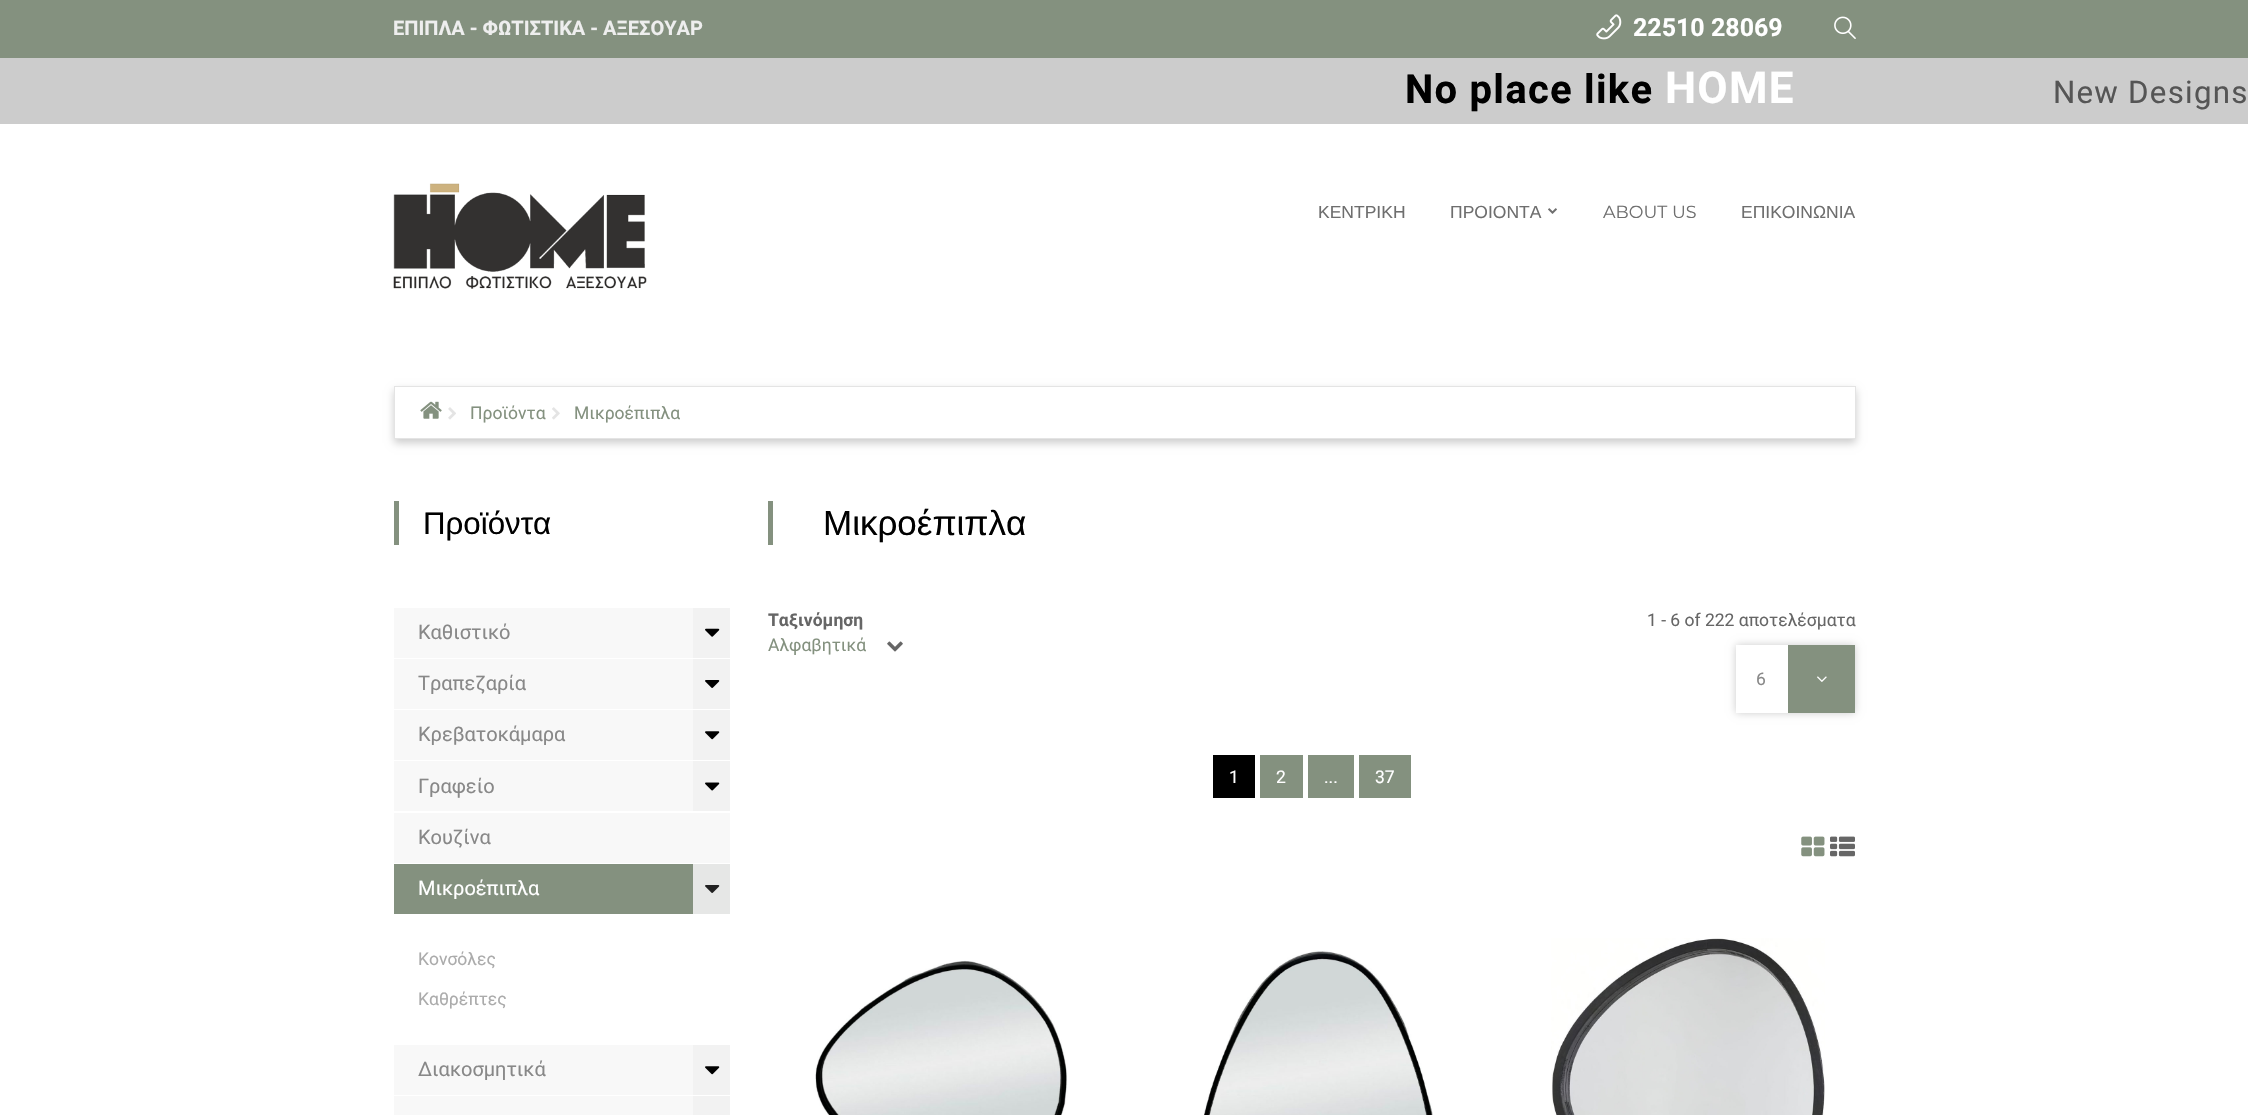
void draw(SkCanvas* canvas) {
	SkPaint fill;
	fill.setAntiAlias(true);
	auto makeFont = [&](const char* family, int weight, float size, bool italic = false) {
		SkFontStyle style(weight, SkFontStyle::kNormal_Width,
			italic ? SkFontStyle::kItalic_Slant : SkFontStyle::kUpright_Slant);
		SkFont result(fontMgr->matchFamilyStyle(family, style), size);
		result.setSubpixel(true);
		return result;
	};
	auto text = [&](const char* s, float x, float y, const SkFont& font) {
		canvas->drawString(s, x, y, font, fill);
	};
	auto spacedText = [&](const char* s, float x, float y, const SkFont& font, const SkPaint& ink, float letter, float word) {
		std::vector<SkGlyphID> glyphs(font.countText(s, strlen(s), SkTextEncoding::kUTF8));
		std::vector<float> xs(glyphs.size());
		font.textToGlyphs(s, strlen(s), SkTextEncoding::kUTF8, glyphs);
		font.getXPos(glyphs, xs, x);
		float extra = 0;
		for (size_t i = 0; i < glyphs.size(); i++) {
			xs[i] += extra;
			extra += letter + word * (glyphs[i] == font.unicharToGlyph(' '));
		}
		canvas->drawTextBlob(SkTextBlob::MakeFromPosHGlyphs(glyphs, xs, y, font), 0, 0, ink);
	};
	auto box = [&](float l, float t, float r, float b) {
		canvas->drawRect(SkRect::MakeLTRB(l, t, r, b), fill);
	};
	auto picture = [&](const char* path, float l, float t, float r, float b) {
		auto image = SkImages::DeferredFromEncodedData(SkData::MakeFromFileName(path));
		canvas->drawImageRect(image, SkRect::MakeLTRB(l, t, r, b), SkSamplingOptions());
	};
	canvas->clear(0xFFCCCCCC);
	fill.setColor(0xFF84917F);
	box(0, 0, 2248, 58);
	picture("image0.png", 1596, 14, 1622, 40);
	picture("image1.png", 1834, 16, 1856, 39);
	fill.setColor(0xFFFFFFFF);
	box(0, 124, 2248, 1115);
	picture("image2.png", 393, 183, 647, 289);
	picture("image3.png", 1548, 208, 1557, 214);
	canvas->save();
	canvas->clipPath(SkPathBuilder(SkPathFillType::kEvenOdd).moveTo(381, 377).lineTo(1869, 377).lineTo(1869, 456).lineTo(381, 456).close().moveTo(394, 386).lineTo(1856, 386).lineTo(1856, 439).lineTo(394, 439).close().detach(), true);
	fill.setColor(0x33000000);
	fill.setMaskFilter(SkMaskFilter::MakeBlur(kNormal_SkBlurStyle, 4));
	canvas->drawRect(SkRect::MakeLTRB(394, 390, 1856, 443), fill);
	fill.setMaskFilter(nullptr);
	canvas->restore();
	fill.setStyle(SkPaint::kStroke_Style);
	fill.setStrokeWidth(1);
	fill.setColor(0xFFE4E4E4);
	canvas->drawRect(SkRect::MakeLTRB(394.5f, 386.5f, 1855.5f, 438.5f), fill);
	picture("image4.png", 420, 401, 442, 419);
	picture("image5.png", 448, 407, 456, 420);
	picture("image6.png", 552, 407, 560, 420);
	fill.setStyle(SkPaint::kFill_Style);
	fill.setColor(0xFF84917F);
	box(394, 501, 399, 545);
	fill.setColor(0xFFF8F8F8);
	box(394, 608, 693, 658);
	fill.setColor(0xFFF2F2F2);
	box(693, 608, 730, 658);
	picture("image7.png", 705, 628, 720, 637);
	fill.setColor(0xFFF8F8F8);
	box(394, 659, 693, 709);
	fill.setColor(0xFFF2F2F2);
	box(693, 659, 730, 709);
	picture("image8.png", 705, 680, 720, 688);
	fill.setColor(0xFFF8F8F8);
	box(394, 710, 693, 760);
	fill.setColor(0xFFF2F2F2);
	box(693, 710, 730, 760);
	picture("image9.png", 705, 731, 720, 740);
	fill.setColor(0xFFF8F8F8);
	box(394, 761, 693, 811);
	fill.setColor(0xFFF2F2F2);
	box(693, 761, 730, 811);
	picture("image10.png", 705, 782, 720, 791);
	fill.setColor(0xFFF8F8F8);
	box(394, 813, 730, 863);
	fill.setColor(0xFF84917F);
	box(394, 864, 693, 914);
	fill.setColor(0xFFE6E7E6);
	box(693, 864, 730, 914);
	picture("image11.png", 705, 885, 720, 893);
	fill.setColor(0xFFF8F8F8);
	box(394, 1045, 693, 1095);
	fill.setColor(0xFFF2F2F2);
	box(693, 1045, 730, 1095);
	picture("image9.png", 705, 1066, 720, 1075);
	fill.setColor(0xFFF8F8F8);
	box(394, 1096, 693, 1115);
	fill.setColor(0xFFF2F2F2);
	box(693, 1096, 730, 1115);
	fill.setColor(0xFF84917F);
	box(768, 501, 773, 545);
	picture("image12.png", 887, 641, 903, 652);
	fill.setColor(0x33000000);
	fill.setMaskFilter(SkMaskFilter::MakeBlur(kNormal_SkBlurStyle, 4));
	canvas->drawRect(SkRect::MakeLTRB(1736, 645, 1855, 713), fill);
	fill.setMaskFilter(nullptr);
	fill.setColor(0xFFFFFFFF);
	box(1736, 645, 1788, 713);
	fill.setColor(0xFF84917F);
	box(1788, 645, 1855, 713);
	picture("image13.png", 1817, 676, 1827, 682);
	fill.setColor(0xFF000000);
	box(1213, 755, 1255, 798);
	fill.setColor(0xFF84917F);
	box(1260, 755, 1303, 798);
	box(1308, 755, 1354, 798);
	box(1359, 755, 1411, 798);
	picture("image14.png", 1801, 836, 1825, 857);
	picture("image15.png", 1830, 836, 1855, 857);
	picture("image16.png", 815, 960, 1068, 1115);
	picture("image17.png", 1204, 950, 1433, 1115);
	picture("image18.png", 1551, 938, 1825, 1115);
	auto font1 = makeFont("Roboto", 700, 20);
	fill.setColor(0xFFEEEEEE);
	text("ΕΠΙΠΛΑ - ΦΩΤΙΣΤΙΚΑ - ΑΞΕΣΟΥΑΡ", 393, 35, font1);
	auto font2 = makeFont("Roboto", 700, 25);
	fill.setColor(0xFFFFFFFF);
	text("22510 28069", 1633, 36, font2);
	auto font3 = makeFont("Roboto", 700, 40);
	fill.setColor(0xFF000000);
	spacedText("Νο place like", 1405, 103, font3, fill, 1.25f, 0);
	auto font4 = makeFont("Roboto", 700, 44);
	fill.setColor(0xFFFFFFFF);
	spacedText("HOME", 1665, 103, font4, fill, 1.25f, 0);
	auto font5 = makeFont("Roboto", 400, 31.25f);
	fill.setColor(0xFF555555);
	spacedText("New Designs", 2053, 103, font5, fill, 1.25f, 0);
	auto font6 = makeFont("Liberation Sans", 400, 17.5f);
	fill.setColor(0xFF6E6E6E);
	text("ΚΕΝΤΡΙΚΗ", 1318, 218, font6);
	text("ΠΡΟΙΟΝΤΑ", 1450, 218, font6);
	auto font7 = makeFont("Montserrat", 400, 17.5f);
	text("ABOUT US", 1603, 218, font7);
	text("ΕΠΙΚΟΙΝΩΝΙΑ", 1741, 218, font6);
	auto font8 = makeFont("Roboto", 400, 17.5f);
	fill.setColor(0xFF84917F);
	text("Προϊόντα", 470, 419, font8);
	text("Μικροέπιπλα", 574, 419, font8);
	auto font9 = makeFont("Liberation Sans", 400, 31.25f);
	fill.setColor(0xFF000000);
	text("Προϊόντα", 423, 534, font9);
	auto font10 = makeFont("Roboto", 400, 20);
	fill.setColor(0xFF888888);
	text("Καθιστικό", 418, 639, font10);
	text("Τραπεζαρία", 418, 690, font10);
	text("Κρεβατοκάμαρα", 418, 741, font10);
	text("Γραφείο", 418, 793, font10);
	text("Κουζίνα", 418, 844, font10);
	fill.setColor(0xFFFFFFFF);
	text("Μικροέπιπλα", 418, 895, font10);
	fill.setColor(0xFFABABAB);
	text("Κονσόλες", 418, 965, font8);
	text("Καθρέπτες", 418, 1005, font8);
	fill.setColor(0xFF888888);
	text("Διακοσμητικά", 418, 1076, font10);
	auto font11 = makeFont("Liberation Sans", 400, 35);
	fill.setColor(0xFF000000);
	text("Μικροέπιπλα", 823, 535, font11);
	auto font12 = makeFont("Roboto", 700, 17.5f);
	fill.setColor(0xFF666666);
	text("Ταξινόμηση", 768, 626, font12);
	fill.setColor(0xFF84917F);
	text("Αλφαβητικά", 768, 651, font8);
	fill.setColor(0xFF666666);
	text("1 - 6 of 222 αποτελέσματα", 1647, 626, font8);
	fill.setColor(0xFF888888);
	text("6", 1756, 685, font8);
	fill.setColor(0xFFFFFFFF);
	text("1", 1229, 783, font8);
	text("2", 1276, 783, font8);
	text("...", 1324, 783, font8);
	text("37", 1375, 783, font8);
}
